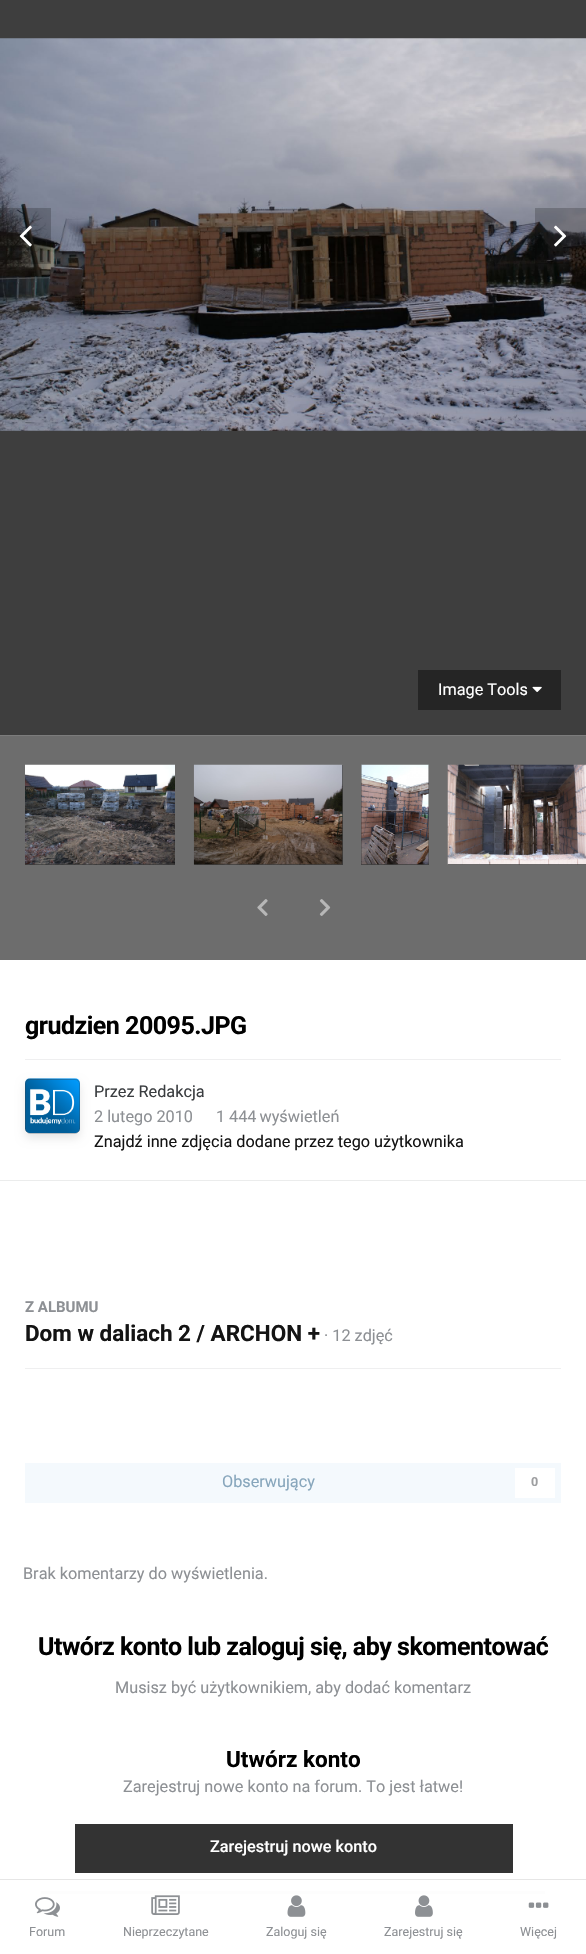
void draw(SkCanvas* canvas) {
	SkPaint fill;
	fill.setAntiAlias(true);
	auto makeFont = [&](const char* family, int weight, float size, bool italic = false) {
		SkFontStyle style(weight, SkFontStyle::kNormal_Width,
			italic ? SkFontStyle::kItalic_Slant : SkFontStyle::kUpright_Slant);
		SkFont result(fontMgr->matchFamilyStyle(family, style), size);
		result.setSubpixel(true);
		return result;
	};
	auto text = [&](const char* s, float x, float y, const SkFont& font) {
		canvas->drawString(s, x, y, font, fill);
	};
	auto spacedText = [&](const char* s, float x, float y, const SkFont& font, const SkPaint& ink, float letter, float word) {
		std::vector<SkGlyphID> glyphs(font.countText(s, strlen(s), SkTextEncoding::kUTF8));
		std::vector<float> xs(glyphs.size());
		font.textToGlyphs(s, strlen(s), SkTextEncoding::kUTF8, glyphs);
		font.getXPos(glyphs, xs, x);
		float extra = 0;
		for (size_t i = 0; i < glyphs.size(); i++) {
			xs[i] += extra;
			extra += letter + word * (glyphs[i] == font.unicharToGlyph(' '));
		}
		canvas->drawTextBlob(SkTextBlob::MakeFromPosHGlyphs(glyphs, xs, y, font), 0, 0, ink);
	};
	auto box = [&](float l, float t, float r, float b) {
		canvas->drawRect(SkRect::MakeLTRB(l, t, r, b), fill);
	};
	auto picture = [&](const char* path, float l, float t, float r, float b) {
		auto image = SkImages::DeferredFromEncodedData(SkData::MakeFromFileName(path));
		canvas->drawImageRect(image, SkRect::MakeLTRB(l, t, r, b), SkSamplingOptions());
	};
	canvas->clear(0xFFFFFFFF);
	fill.setColor(0xFF3E3E3E);
	box(0, 0, 586, 735);
	picture("image0.png", 0, 38, 586, 431);
	fill.setColor(0x33000000);
	box(0, 208, 51, 264);
	picture("image1.png", 19, 225, 32, 247);
	box(535, 208, 586, 264);
	picture("image2.png", 554, 225, 567, 247);
	fill.setColor(0xFF252525);
	box(418, 670, 561, 710);
	picture("image3.png", 532, 686, 542, 692);
	fill.setColor(0xFF6D6D6D);
	box(0, 736, 586, 960);
	fill.setColor(0xFF7C7C7C);
	box(0, 735, 586, 736);
	fill.setColor(0xFF3D3D3D);
	box(25, 864, 175, 865);
	picture("image4.png", 25, 764, 175, 865);
	box(194, 765, 343, 865);
	picture("image5.png", 193, 764, 343, 865);
	box(361, 765, 429, 865);
	picture("image6.png", 361, 764, 429, 865);
	box(448, 864, 586, 865);
	picture("image7.png", 447, 764, 586, 865);
	picture("image8.png", 257, 899, 268, 916);
	picture("image9.png", 319, 899, 331, 916);
	fill.setColor(0xFFEFEFF0);
	box(25, 1059, 561, 1060);
	picture("image10.png", 25, 1078, 80, 1134);
	canvas->save();
	canvas->clipPath(SkPathBuilder(SkPathFillType::kEvenOdd).moveTo(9, 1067).lineTo(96, 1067).lineTo(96, 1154).lineTo(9, 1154).close().moveTo(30, 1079).lineTo(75, 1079).cubicTo(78, 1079, 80, 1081, 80, 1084).lineTo(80, 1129).cubicTo(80, 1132, 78, 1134, 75, 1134).lineTo(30, 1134).cubicTo(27, 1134, 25, 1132, 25, 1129).lineTo(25, 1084).cubicTo(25, 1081, 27, 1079, 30, 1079).close().detach(), true);
	fill.setColor(0x1A000000);
	fill.setMaskFilter(SkMaskFilter::MakeBlur(kNormal_SkBlurStyle, 5));
	canvas->drawRoundRect(SkRect::MakeLTRB(25, 1083, 80, 1138), 5, 5, fill);
	fill.setMaskFilter(nullptr);
	canvas->restore();
	fill.setStyle(SkPaint::kStroke_Style);
	fill.setStrokeWidth(1);
	fill.setColor(0x4D3A3D40);
	canvas->drawRoundRect(SkRect::MakeLTRB(25.5f, 1079.5f, 79.5f, 1133.5f), 4.5f, 4.5f, fill);
	fill.setStyle(SkPaint::kFill_Style);
	fill.setColor(0xFFEBECEC);
	box(0, 1180, 586, 1181);
	fill.setColor(0xFFEFEFF0);
	box(25, 1368, 561, 1369);
	fill.setColor(0xFFF4F9FD);
	box(25, 1463, 561, 1503);
	fill.setColor(0xFFFFFFFF);
	box(515, 1468, 555, 1498);
	fill.setColor(0xFFF2F2F2);
	box(41, 1891, 545, 1894);
	fill.setColor(0xFF333333);
	box(75, 1824, 513, 1873);
	fill.setColor(0xFFE6E6E6);
	box(0, 1879, 586, 1880);
	fill.setColor(0xCCFFFFFF);
	box(41, 1891, 545, 1894);
	picture("image11.png", 35, 1897, 60, 1917);
	picture("image12.png", 151, 1895, 180, 1915);
	picture("image13.png", 287, 1895, 306, 1917);
	picture("image14.png", 415, 1895, 433, 1917);
	picture("image15.png", 528, 1902, 549, 1908);
	auto font1 = makeFont("Roboto", 400, 16.25f);
	fill.setColor(0xFFFFFFFF);
	text("Image Tools", 438, 695, font1);
	auto font2 = makeFont("Roboto", 700, 25);
	fill.setColor(0xFF000000);
	spacedText("grudzien 20095.JPG", 25, 1034, font2, fill, -0.5f, 0);
	fill.setColor(0xFF3A3D40);
	text("Przez Redakcja", 94, 1097, font1);
	fill.setColor(0xFF8D9094);
	text("2 lutego 2010", 94, 1122, font1);
	text("1", 216, 1122, font1);
	spacedText("444 wyświetleń", 229, 1122, font1, fill, 0, -1);
	fill.setColor(0xFF141414);
	text("Znajdź inne zdjęcia dodane przez tego użytkownika", 94, 1147, font1);
	auto font3 = makeFont("Roboto", 700, 15);
	fill.setColor(0xFF8D9094);
	text("Z ALBUMU", 25, 1312, font3);
	auto font4 = makeFont("Roboto", 700, 22.5f);
	fill.setColor(0xFF141414);
	text("Dom w daliach 2 / ARCHON +", 25, 1341, font4);
	fill.setColor(0xFF8D9094);
	text("· 12 zdjęć", 324, 1341, font1);
	fill.setColor(0xFF87A6BC);
	text("Obserwujący", 222, 1487, font1);
	auto font5 = makeFont("Roboto", 700, 12.5f);
	fill.setColor(0xFF9D9EA0);
	text("0", 531, 1486, font5);
	fill.setColor(0xFF8D9094);
	text("Brak komentarzy do wyświetlenia.", 23, 1579, font1);
	fill.setColor(0xFF000000);
	spacedText("Utwórz konto lub zaloguj się, aby skomentować", 38, 1655, font2, fill, -0.5f, 0);
	fill.setColor(0xFF8D9094);
	text("Musisz być użytkownikiem, aby dodać komentarz", 115, 1693, font1);
	fill.setColor(0xFF000000);
	text("Utwórz konto", 226, 1767, font4);
	fill.setColor(0xFF8D9094);
	text("Zarejestruj nowe konto na forum. To jest łatwe!", 123, 1792, font1);
	auto font6 = makeFont("Roboto", 500, 16.25f);
	fill.setColor(0xFFFFFFFF);
	text("Zarejestruj nowe konto", 210, 1852, font6);
	auto font7 = makeFont("Roboto", 400, 12.5f);
	fill.setColor(0xFF8D9094);
	text("Forum", 29, 1936, font7);
	text("Nieprzeczytane", 123, 1936, font7);
	text("Zaloguj się", 266, 1936, font7);
	text("Zarejestruj się", 384, 1936, font7);
	text("Więcej", 520, 1936, font7);
}
